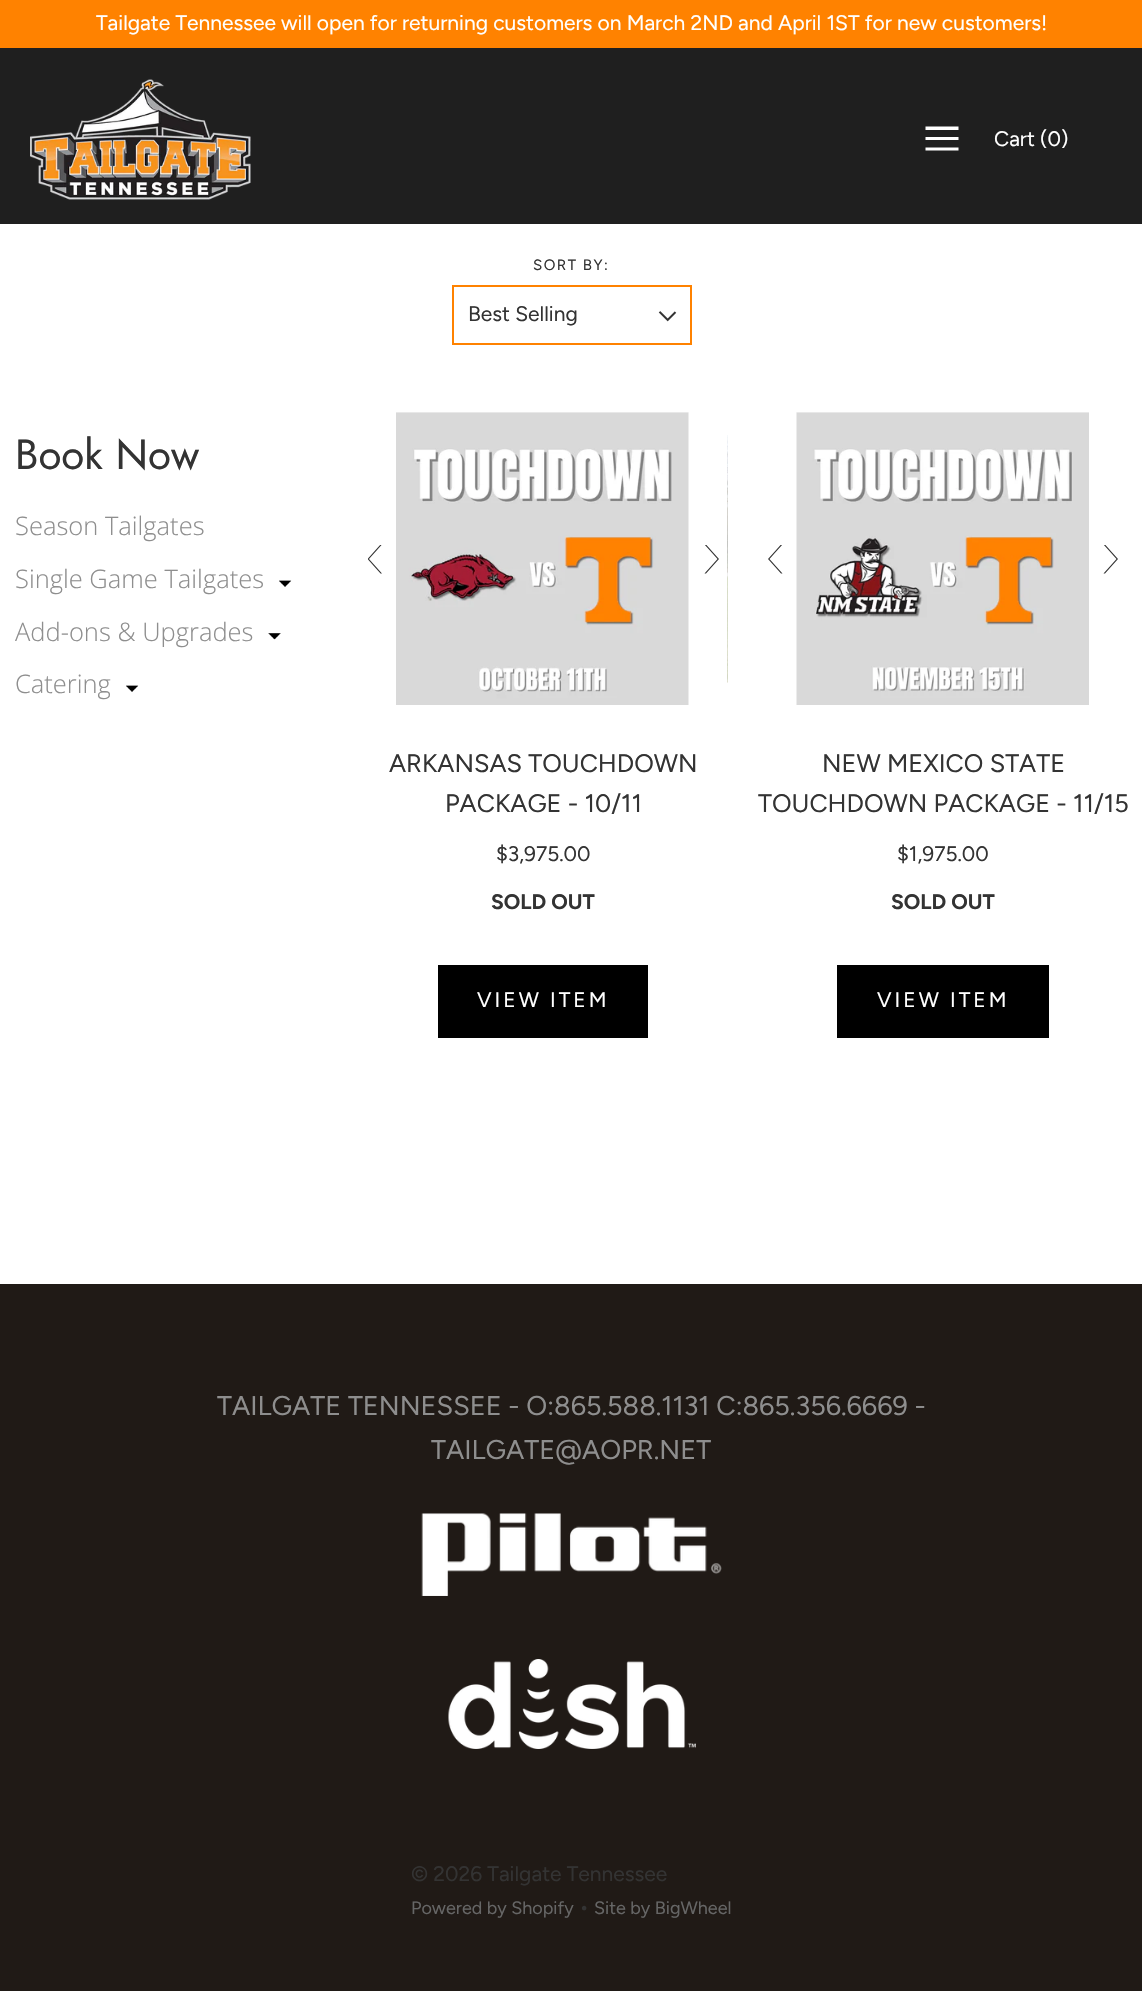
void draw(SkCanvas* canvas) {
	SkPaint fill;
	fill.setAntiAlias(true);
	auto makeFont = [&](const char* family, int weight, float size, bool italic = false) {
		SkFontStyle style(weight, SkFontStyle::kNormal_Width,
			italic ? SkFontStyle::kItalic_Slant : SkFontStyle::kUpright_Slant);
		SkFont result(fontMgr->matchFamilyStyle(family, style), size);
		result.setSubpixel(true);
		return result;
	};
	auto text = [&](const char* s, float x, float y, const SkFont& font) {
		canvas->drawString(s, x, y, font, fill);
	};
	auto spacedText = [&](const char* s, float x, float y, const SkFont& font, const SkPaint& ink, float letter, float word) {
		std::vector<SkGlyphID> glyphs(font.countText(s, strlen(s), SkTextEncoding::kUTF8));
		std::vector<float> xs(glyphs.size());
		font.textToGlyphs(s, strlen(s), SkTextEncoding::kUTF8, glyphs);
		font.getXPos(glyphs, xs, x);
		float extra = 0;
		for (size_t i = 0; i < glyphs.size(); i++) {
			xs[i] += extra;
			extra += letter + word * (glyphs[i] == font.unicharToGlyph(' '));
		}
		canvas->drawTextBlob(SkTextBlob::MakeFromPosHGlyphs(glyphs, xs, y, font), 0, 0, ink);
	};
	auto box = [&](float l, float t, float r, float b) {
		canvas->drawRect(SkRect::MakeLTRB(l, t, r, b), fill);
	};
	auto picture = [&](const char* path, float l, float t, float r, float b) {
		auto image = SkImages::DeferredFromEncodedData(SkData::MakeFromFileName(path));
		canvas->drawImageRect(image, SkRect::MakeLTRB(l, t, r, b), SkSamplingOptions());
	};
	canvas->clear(0xFFFFFFFF);
	fill.setColor(0xFFFF8200);
	box(0, 0, 1142, 48);
	fill.setColor(0xFF1F1F1F);
	box(0, 48, 1142, 224);
	picture("image0.png", 30, 79, 251, 200);
	fill.setColor(0xFFFFFFFF);
	canvas->drawPath(SkPathBuilder().moveTo(925.5f, 126.5f).lineTo(925.5f, 130).lineTo(958.5f, 130).lineTo(958.5f, 126.5f).close().moveTo(925.5f, 137).lineTo(925.5f, 140).lineTo(958.5f, 140).lineTo(958.5f, 137).close().moveTo(925.5f, 147.5f).lineTo(925.5f, 150.5f).lineTo(958.5f, 150.5f).lineTo(958.5f, 147.5f).close().detach(), fill);
	picture("image1.png", 658, 311, 677, 322);
	fill.setStyle(SkPaint::kStroke_Style);
	fill.setStrokeWidth(2);
	fill.setColor(0xFFFF8200);
	canvas->drawRect(SkRect::MakeLTRB(453, 286, 691, 344), fill);
	picture("image2.png", 279, 580, 292, 587);
	picture("image3.png", 268, 633, 281, 640);
	picture("image4.png", 126, 685, 139, 692);
	canvas->save();
	canvas->clipRect(SkRect::MakeLTRB(368, 545, 396, 575));
	fill.setStyle(SkPaint::kFill_Style);
	fill.setColor(0xFF333333);
	canvas->drawPath(SkPathBuilder().moveTo(367.5f, 559).lineTo(380.5f, 573.5f).lineTo(382, 573.5f).lineTo(369, 559).lineTo(382, 544.5f).lineTo(380.5f, 544.5f).close().detach(), fill);
	canvas->restore();
	picture("image7.png", 396, 412, 689, 413);
	picture("image5.png", 396, 412, 689, 705);
	picture("image6.png", 727, 435, 728, 683);
	canvas->save();
	canvas->clipRect(SkRect::MakeLTRB(690, 545, 719, 575));
	canvas->drawPath(SkPathBuilder().moveTo(719, 559).lineTo(706, 544.5f).lineTo(704.5f, 544.5f).lineTo(717.5f, 559).lineTo(704.5f, 573.5f).lineTo(706, 573.5f).close().detach(), fill);
	canvas->restore();
	fill.setColor(0xFF000000);
	box(438, 965, 648, 1038);
	canvas->save();
	canvas->clipRect(SkRect::MakeLTRB(768, 545, 797, 575));
	fill.setColor(0xFF333333);
	canvas->drawPath(SkPathBuilder().moveTo(768, 559).lineTo(781, 573.5f).lineTo(782.5f, 573.5f).lineTo(769.5f, 559).lineTo(782.5f, 544.5f).lineTo(781, 544.5f).close().detach(), fill);
	canvas->restore();
	picture("image9.png", 796, 412, 1089, 413);
	picture("image8.png", 796, 412, 1089, 705);
	canvas->save();
	canvas->clipRect(SkRect::MakeLTRB(1089, 545, 1119, 575));
	canvas->drawPath(SkPathBuilder().moveTo(1118, 559).lineTo(1105, 544.5f).lineTo(1103.5f, 544.5f).lineTo(1116.5f, 559).lineTo(1103.5f, 573.5f).lineTo(1105, 573.5f).close().detach(), fill);
	canvas->restore();
	fill.setColor(0xFF000000);
	box(837, 965, 1049, 1038);
	fill.setColor(0xFF201A16);
	box(0, 1284, 1142, 1991);
	picture("image10.png", 421, 1513, 722, 1596);
	picture("image11.png", 448, 1659, 696, 1749);
	auto font1 = makeFont("Figtree", 400, 21);
	fill.setColor(0xFFFFFFFF);
	text("Tailgate Tennessee will open for returning customers on March 2ND and April 1ST for new customers!", 96, 30, font1);
	text("Cart (0)", 994, 146, font1);
	auto font2 = makeFont("Figtree", 400, 15);
	fill.setColor(0xFF333333);
	spacedText("SORT BY:", 533, 270, font2, fill, 1.5f, 0);
	text("Best Selling", 468, 321, font1);
	auto font3 = makeFont("Jost", 400, 42);
	text("Book Now", 15, 469, font3);
	auto font4 = makeFont("Open Sans", 300, 25.5f);
	fill.setColor(0xFF8E8E8E);
	text("Season Tailgates", 15, 535, font4);
	text("Single Game Tailgates", 15, 588, font4);
	text("Add-ons & Upgrades", 15, 641, font4);
	text("Catering", 15, 693, font4);
	auto font5 = makeFont("Figtree", 400, 25.25f);
	fill.setColor(0xFF333333);
	text("ARKANSAS TOUCHDOWN", 389, 772, font5);
	text("PACKAGE - 10/11", 445, 812, font5);
	text("$3,975.00", 496, 861, font1);
	auto font6 = makeFont("Figtree", 700, 21);
	text("SOLD OUT", 491, 909, font6);
	fill.setColor(0xFFFFFFFF);
	spacedText("VIEW ITEM", 477, 1007, font1, fill, 3, 0);
	fill.setColor(0xFF333333);
	text("NEW MEXICO STATE", 822, 772, font5);
	text("TOUCHDOWN PACKAGE - 11/15", 758, 812, font5);
	text("$1,975.00", 897, 861, font1);
	text("SOLD OUT", 891, 909, font6);
	fill.setColor(0xFFFFFFFF);
	spacedText("VIEW ITEM", 877, 1007, font1, fill, 3, 0);
	auto font7 = makeFont("Figtree", 400, 27);
	fill.setColor(0xFF8E8E8E);
	text("TAILGATE TENNESSEE - O:865.588.1131 C:865.356.6669 -", 217, 1415, font7);
	text("TAILGATE@AOPR.NET", 431, 1459, font7);
	fill.setColor(0xFF333333);
	text("© 2026 Tailgate Tennessee", 411, 1881, font1);
	auto font8 = makeFont("Figtree", 400, 18);
	fill.setColor(0xFF666666);
	text("Powered by Shopify", 411, 1914, font8);
	fill.setColor(0xFF333333);
	text("•", 579, 1914, font1);
	fill.setColor(0xFF666666);
	text("Site by BigWheel", 594, 1914, font8);
}
